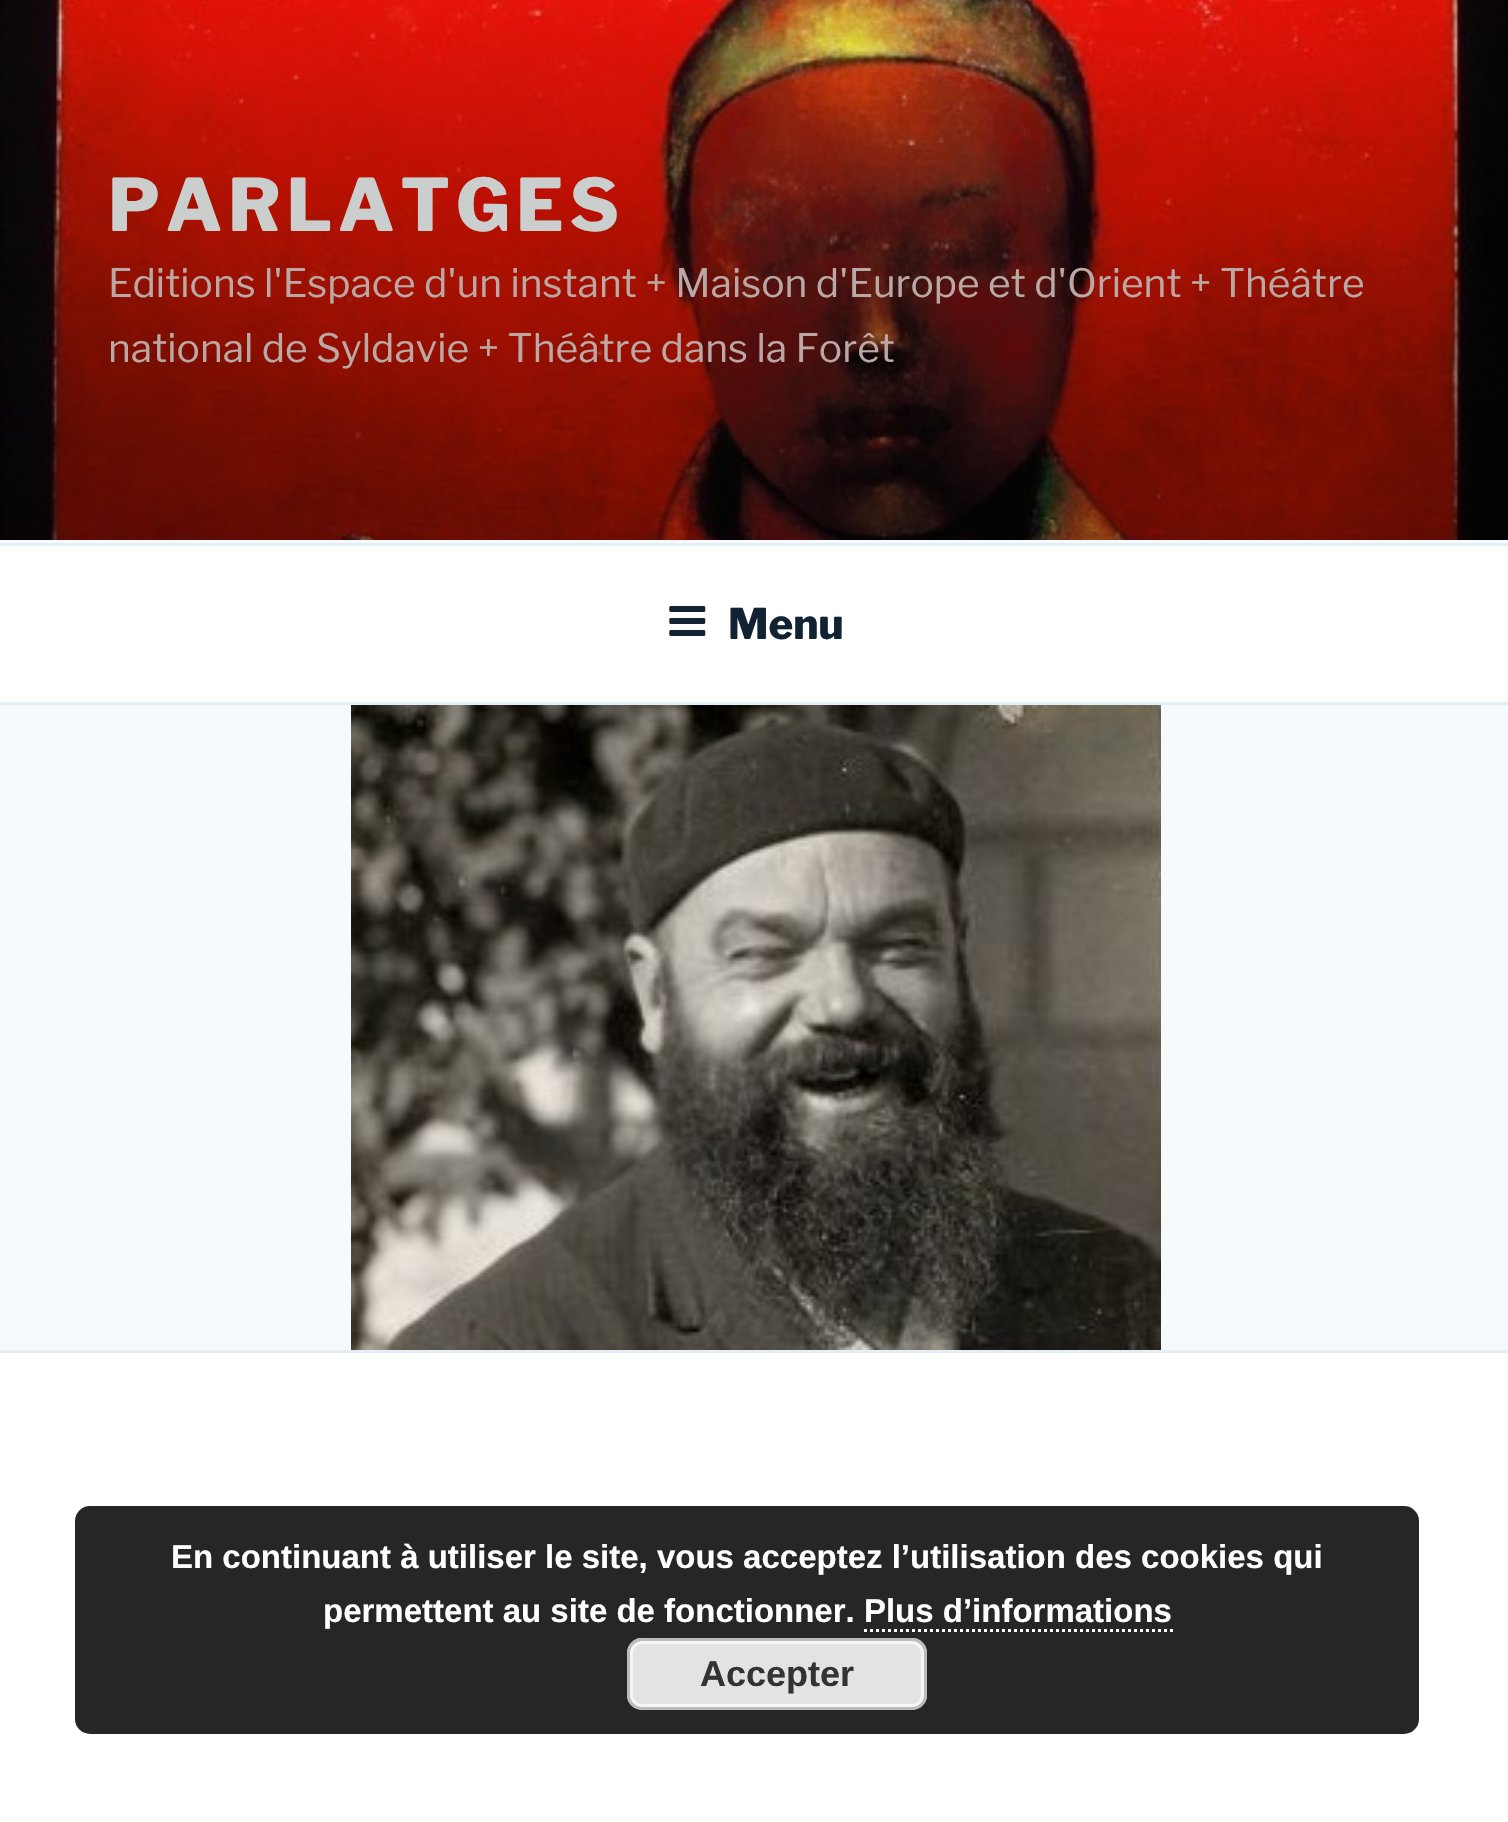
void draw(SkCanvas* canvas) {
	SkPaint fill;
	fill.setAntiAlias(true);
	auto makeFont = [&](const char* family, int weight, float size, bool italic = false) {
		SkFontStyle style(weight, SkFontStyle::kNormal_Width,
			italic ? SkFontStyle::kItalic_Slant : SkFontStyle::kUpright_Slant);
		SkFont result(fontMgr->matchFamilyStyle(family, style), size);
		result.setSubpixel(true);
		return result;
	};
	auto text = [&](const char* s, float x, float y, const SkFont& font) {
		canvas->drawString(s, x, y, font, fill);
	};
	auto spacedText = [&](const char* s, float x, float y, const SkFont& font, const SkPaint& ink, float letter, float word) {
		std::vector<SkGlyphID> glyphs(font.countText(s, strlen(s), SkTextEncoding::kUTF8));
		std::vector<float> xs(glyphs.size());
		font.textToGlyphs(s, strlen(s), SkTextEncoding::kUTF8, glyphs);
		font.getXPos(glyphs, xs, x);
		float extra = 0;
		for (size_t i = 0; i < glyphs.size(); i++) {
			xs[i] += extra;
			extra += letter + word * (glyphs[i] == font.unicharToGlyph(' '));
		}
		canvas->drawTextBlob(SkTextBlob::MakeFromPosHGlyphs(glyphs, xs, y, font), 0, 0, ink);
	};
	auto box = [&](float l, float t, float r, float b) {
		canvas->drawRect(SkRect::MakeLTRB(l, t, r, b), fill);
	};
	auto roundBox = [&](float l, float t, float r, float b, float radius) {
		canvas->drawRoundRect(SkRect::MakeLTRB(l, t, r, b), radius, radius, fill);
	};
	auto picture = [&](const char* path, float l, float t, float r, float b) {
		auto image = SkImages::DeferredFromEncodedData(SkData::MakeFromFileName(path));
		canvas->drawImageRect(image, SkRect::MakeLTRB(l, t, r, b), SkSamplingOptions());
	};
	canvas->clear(0xFFFFFFFF);
	fill.setColor(0xFFF7FAFC);
	box(0, 540, 1508, 543);
	picture("image0.png", 0, 0, 1508, 540);
	fill.setColor(0xFFE4EEF6);
	box(0, 543, 1508, 546);
	box(0, 702, 1508, 705);
	picture("image1.png", 669, 606, 706, 636);
	fill.setColor(0xFFF7FAFC);
	box(0, 705, 1508, 1350);
	fill.setColor(0xFFE4EEF6);
	box(0, 1350, 1508, 1353);
	picture("image2.png", 351, 705, 1161, 1350);
	fill.setColor(0xD9000000);
	roundBox(75, 1506, 1419, 1734, 15);
	fill.setStyle(SkPaint::kStroke_Style);
	fill.setStrokeWidth(3);
	fill.setColor(0xFFFFFFFF);
	fill.setPathEffect(SkDashPathEffect::Make({{3, 3}}, 0));
	canvas->drawPath(SkPathBuilder().moveTo(864, 1630.5f).lineTo(1173, 1630.5f).detach(), fill);
	fill.setPathEffect(nullptr);
	fill.setStyle(SkPaint::kFill_Style);
	fill.setColor(0xFFE3E3E3);
	roundBox(627, 1638, 927, 1710, 15);
	fill.setStyle(SkPaint::kStroke_Style);
	fill.setColor(0xFFF6F6F6);
	canvas->drawRoundRect(SkRect::MakeLTRB(631.5f, 1642.5f, 922.5f, 1705.5f), 10.5f, 10.5f, fill);
	fill.setColor(0xFFBBBBBB);
	canvas->drawRoundRect(SkRect::MakeLTRB(628.5f, 1639.5f, 925.5f, 1708.5f), 13.5f, 13.5f, fill);
	auto font1 = makeFont("Libre Franklin", 100, 72);
	fill.setStyle(SkPaint::kFill_Style);
	fill.setColor(0xFFCACECD);
	spacedText("PARLATGES", 108, 231, font1, fill, 5.75f, 0);
	auto font2 = makeFont("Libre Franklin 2", 100, 39);
	fill.setColor(0xFFBBA8A5);
	text("Editions l'Espace d'un instant + Maison d'Europe et d'Orient + Théâtre", 108, 297, font2);
	text("national de Syldavie + Théâtre dans la Forêt", 108, 362, font2);
	auto font3 = makeFont("Libre Franklin", 100, 42);
	fill.setColor(0xFF112332);
	text("Menu", 728, 639, font3);
	auto font4 = makeFont("Liberation Sans", 700, 33);
	fill.setColor(0xFFFFFFFF);
	text("En continuant à utiliser le site, vous acceptez l’utilisation des cookies qui", 171, 1568, font4);
	text("permettent au site de fonctionner. Plus d’informations", 323, 1622, font4);
	auto font5 = makeFont("Liberation Sans", 700, 36);
	fill.setColor(0xFF333333);
	text("Accepter", 700, 1686, font5);
}
